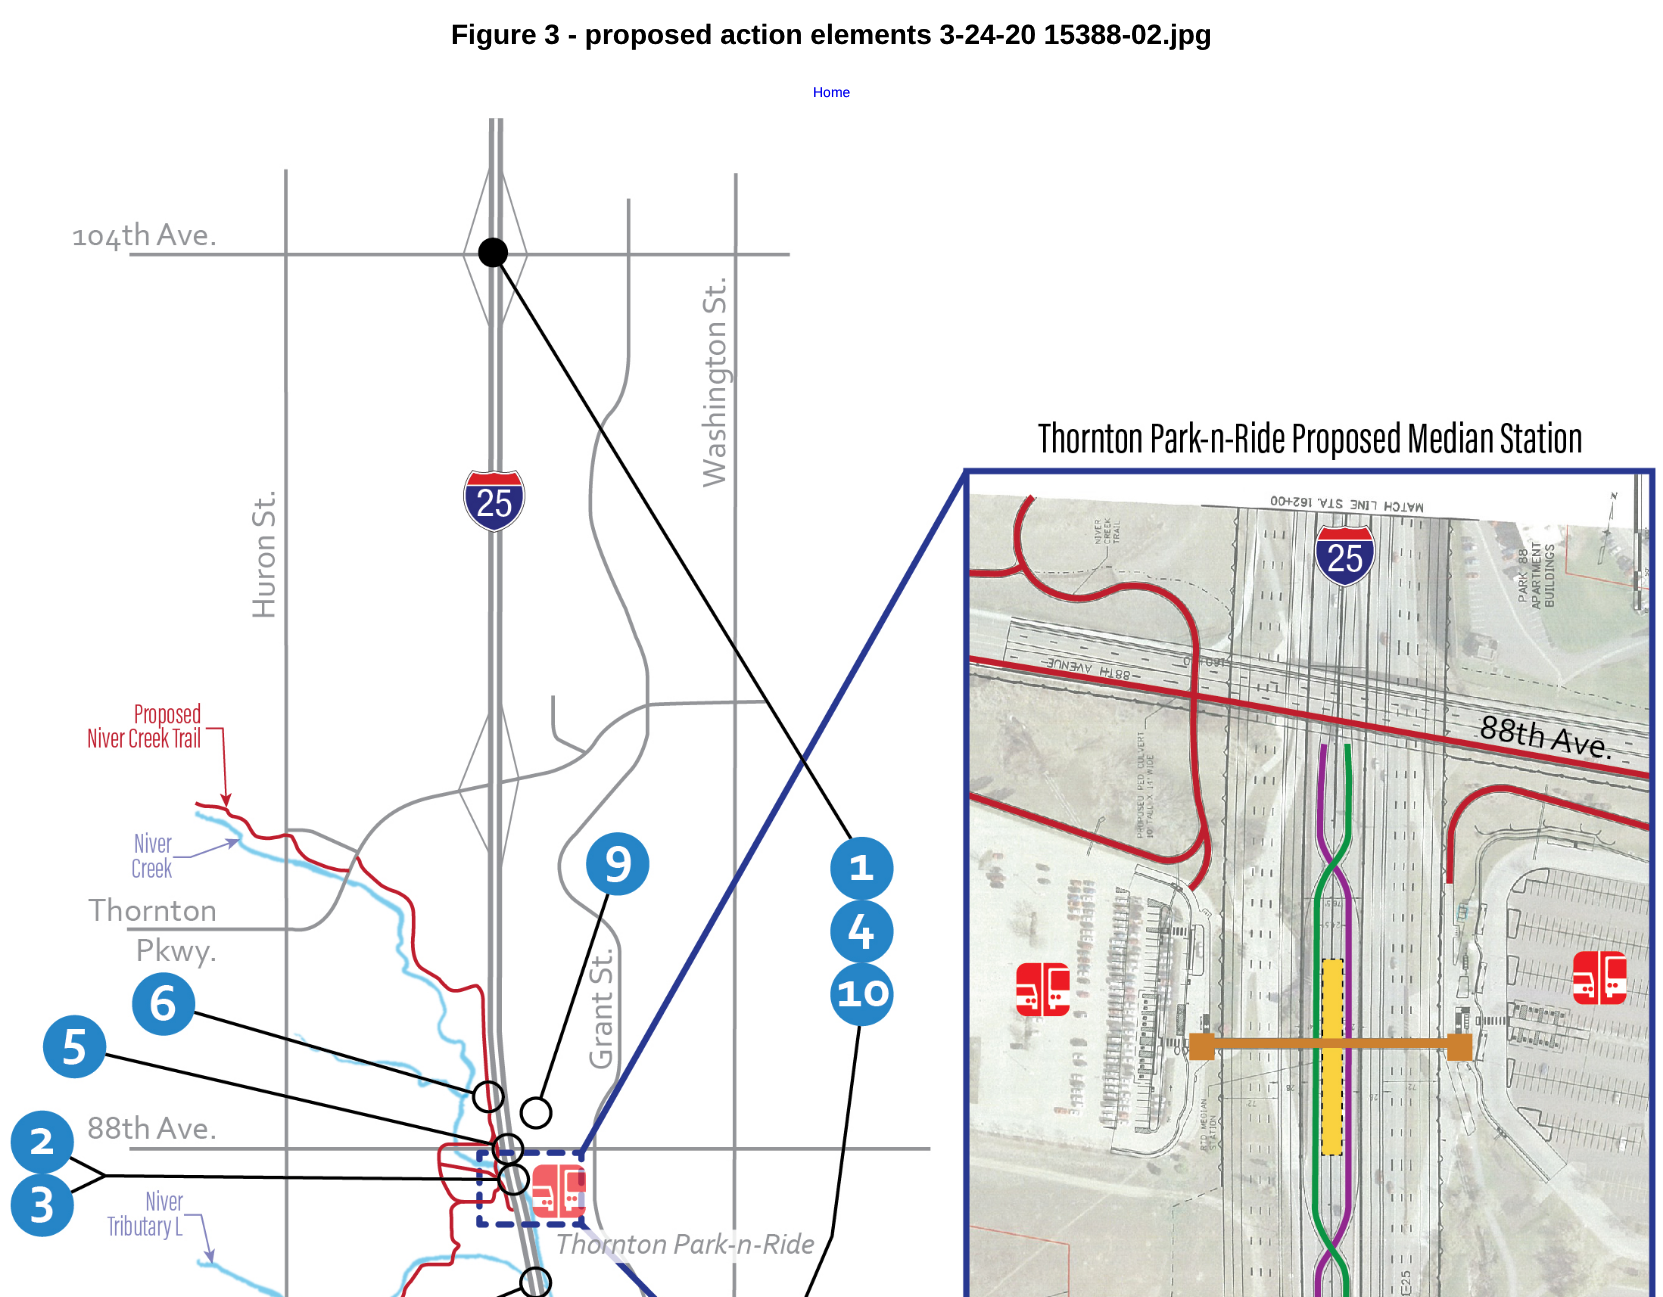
void draw(SkCanvas* canvas) {
	SkPaint fill;
	fill.setAntiAlias(true);
	auto makeFont = [&](const char* family, int weight, float size, bool italic = false) {
		SkFontStyle style(weight, SkFontStyle::kNormal_Width,
			italic ? SkFontStyle::kItalic_Slant : SkFontStyle::kUpright_Slant);
		SkFont result(fontMgr->matchFamilyStyle(family, style), size);
		result.setSubpixel(true);
		return result;
	};
	auto text = [&](const char* s, float x, float y, const SkFont& font) {
		canvas->drawString(s, x, y, font, fill);
	};
	auto picture = [&](const char* path, float l, float t, float r, float b) {
		auto image = SkImages::DeferredFromEncodedData(SkData::MakeFromFileName(path));
		canvas->drawImageRect(image, SkRect::MakeLTRB(l, t, r, b), SkSamplingOptions());
	};
	canvas->clear(0xFFFFFFFF);
	picture("image0.png", 10, 118, 1656, 1297);
	auto font1 = makeFont("Liberation Sans", 700, 28);
	fill.setColor(0xFF000000);
	text("Figure 3 - proposed action elements 3-24-20 15388-02.jpg", 451, 44, font1);
	auto font2 = makeFont("Liberation Sans", 400, 14);
	fill.setColor(0xFF0000EE);
	text("Home", 813, 97, font2);
}
